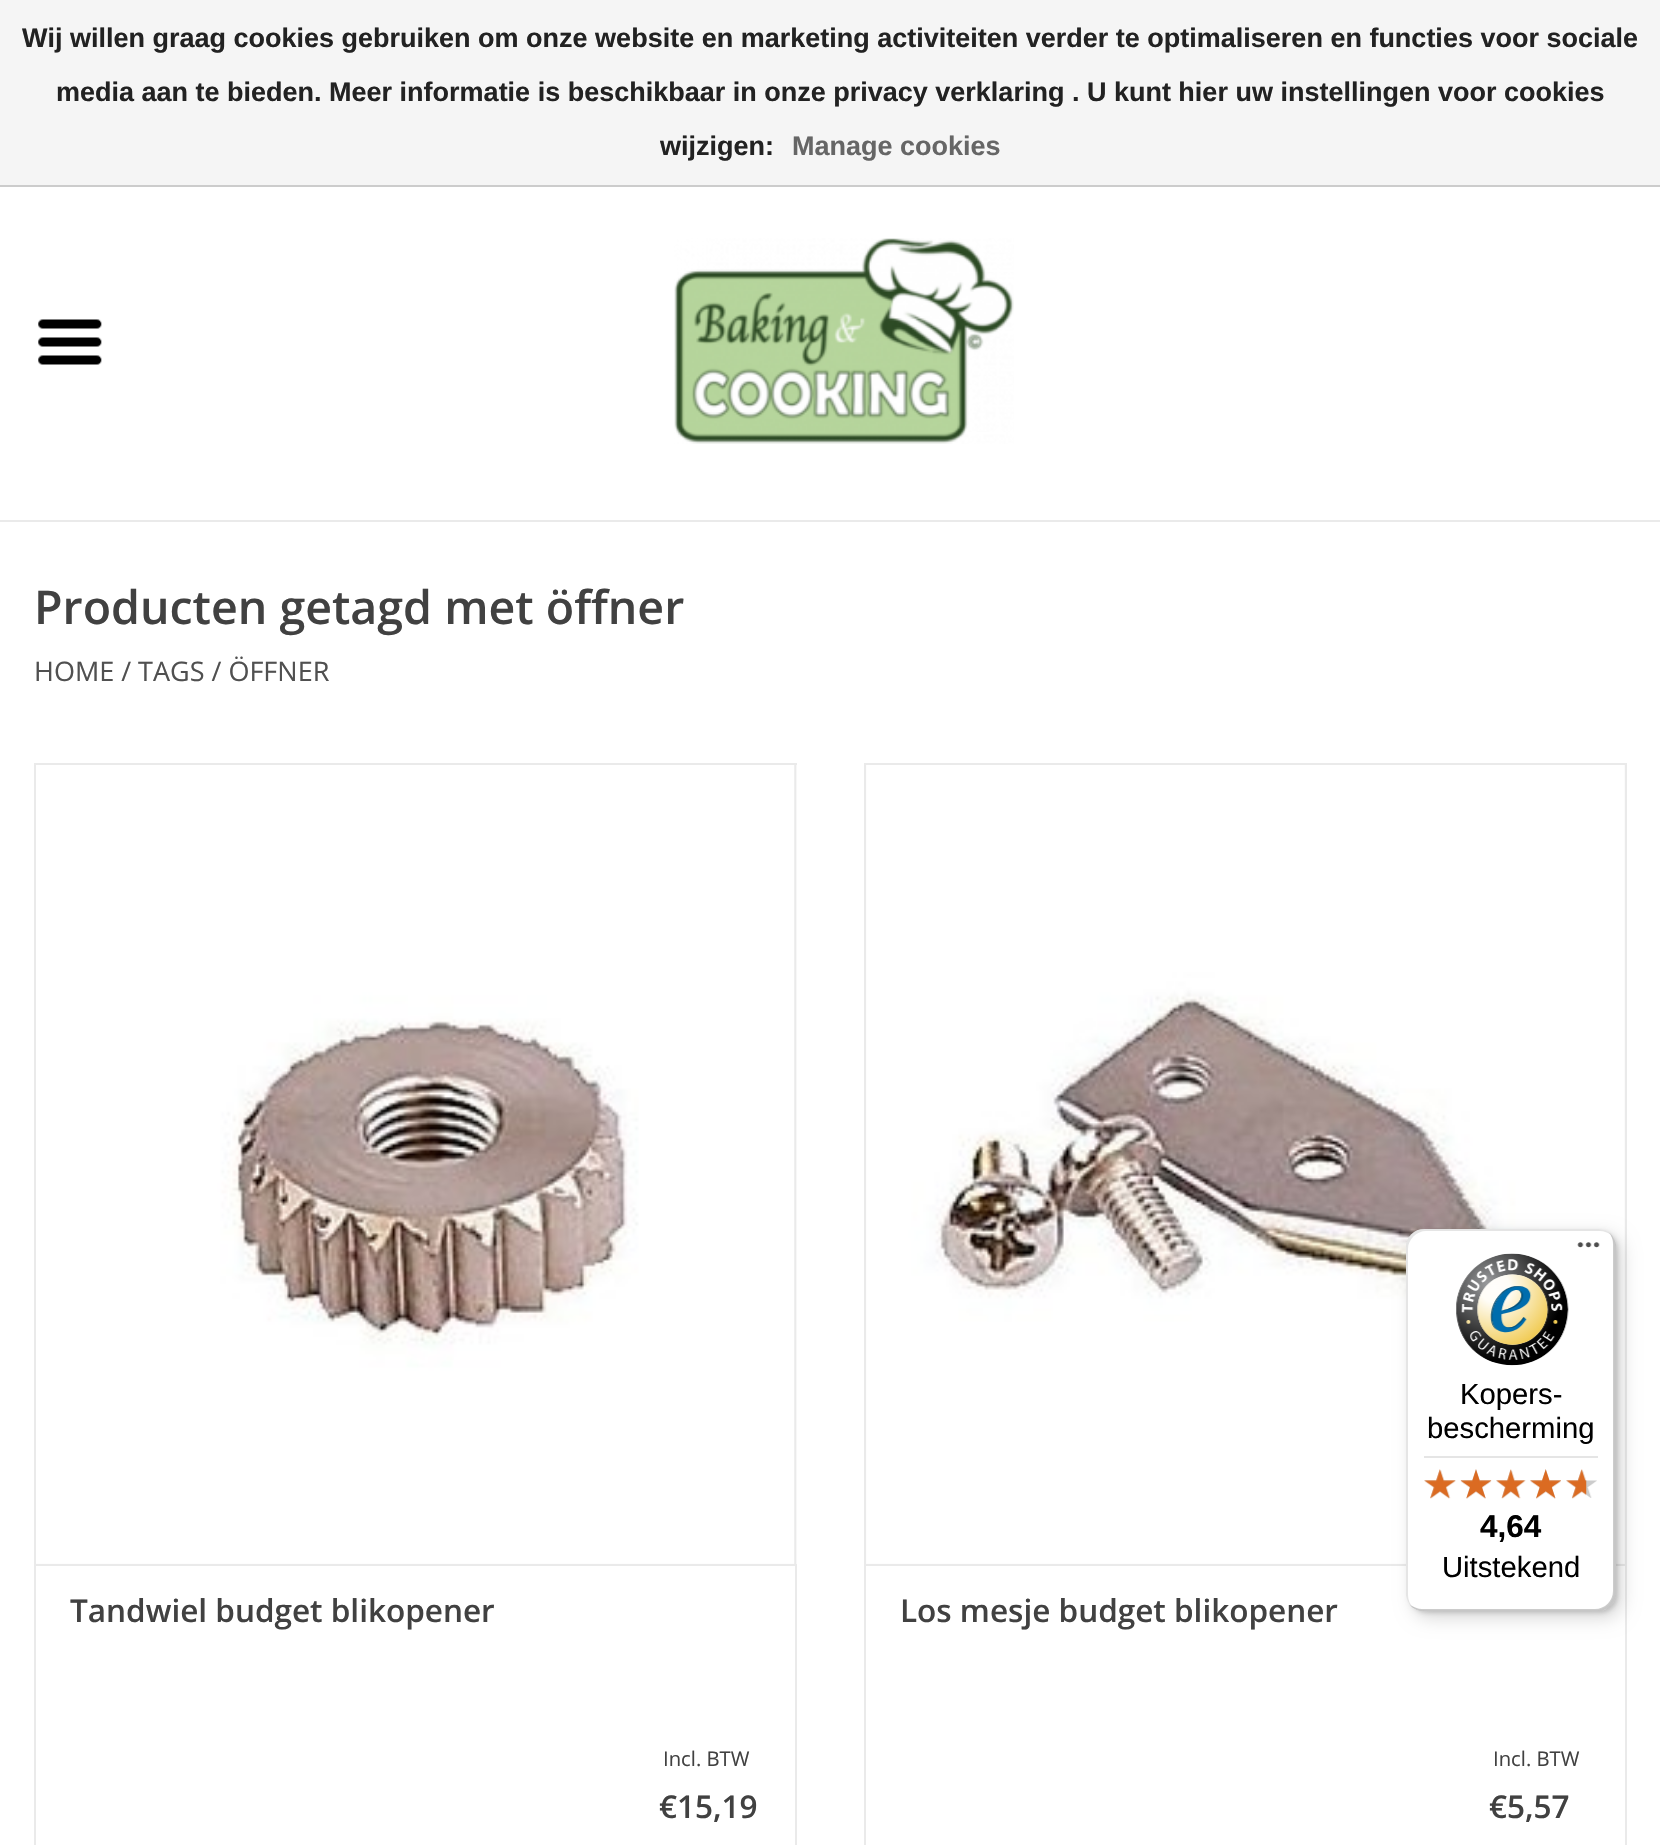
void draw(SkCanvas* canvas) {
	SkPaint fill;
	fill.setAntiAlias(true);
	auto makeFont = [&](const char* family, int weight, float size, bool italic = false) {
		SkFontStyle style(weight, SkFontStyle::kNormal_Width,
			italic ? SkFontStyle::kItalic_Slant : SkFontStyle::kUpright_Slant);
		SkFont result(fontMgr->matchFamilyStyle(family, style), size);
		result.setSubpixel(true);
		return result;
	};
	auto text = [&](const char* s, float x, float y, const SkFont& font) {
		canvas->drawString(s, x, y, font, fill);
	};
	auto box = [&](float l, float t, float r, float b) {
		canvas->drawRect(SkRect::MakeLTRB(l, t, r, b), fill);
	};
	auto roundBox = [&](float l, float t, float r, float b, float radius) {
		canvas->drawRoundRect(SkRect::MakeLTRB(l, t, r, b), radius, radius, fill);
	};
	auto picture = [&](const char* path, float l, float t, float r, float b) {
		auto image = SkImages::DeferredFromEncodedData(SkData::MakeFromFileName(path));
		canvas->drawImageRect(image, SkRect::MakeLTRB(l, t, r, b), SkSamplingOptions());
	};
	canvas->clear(0xFFFFFFFF);
	fill.setColor(0xFFF5F5F5);
	box(0, 0, 1660, 185);
	fill.setColor(0xFFCCCCCC);
	box(0, 185, 1660, 187);
	fill.setColor(0xFFEAEAEA);
	box(0, 520, 1660, 522);
	picture("image0.png", 674, 238, 1014, 444);
	picture("image1.png", 38, 319, 102, 365);
	fill.setColor(0xFFF7F7F7);
	box(36, 765, 797, 1564);
	fill.setColor(0xFFEAEAEA);
	box(34, 763, 797, 765);
	box(794, 763, 796, 1564);
	box(34, 763, 36, 1564);
	picture("image2.png", 36, 765, 795, 1564);
	fill.setStyle(SkPaint::kStroke_Style);
	fill.setStrokeWidth(2);
	canvas->drawRect(SkRect::MakeLTRB(35, 1565, 796, 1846), fill);
	fill.setStyle(SkPaint::kFill_Style);
	fill.setColor(0xFFF7F7F7);
	box(866, 765, 1625, 1564);
	fill.setColor(0xFFEAEAEA);
	box(864, 763, 1627, 765);
	box(1625, 763, 1627, 1564);
	box(864, 763, 866, 1564);
	picture("image3.png", 866, 765, 1625, 1564);
	fill.setStyle(SkPaint::kStroke_Style);
	canvas->drawRect(SkRect::MakeLTRB(865, 1565, 1626, 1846), fill);
	fill.setStyle(SkPaint::kFill_Style);
	fill.setColor(0x26000000);
	fill.setMaskFilter(SkMaskFilter::MakeBlur(kNormal_SkBlurStyle, 9));
	canvas->drawRoundRect(SkRect::MakeLTRB(1413, 1235, 1622, 1618), 18, 18, fill);
	fill.setMaskFilter(nullptr);
	fill.setMaskFilter(SkMaskFilter::MakeBlur(kNormal_SkBlurStyle, 2));
	canvas->drawRoundRect(SkRect::MakeLTRB(1409, 1231, 1618, 1613), 18, 18, fill);
	fill.setMaskFilter(nullptr);
	fill.setColor(0xFFFFFFFF);
	roundBox(1406, 1229, 1616, 1611, 18);
	fill.setColor(0x1A000000);
	canvas->drawPath(SkPathBuilder().moveTo(1426, 1231).lineTo(1600, 1231).cubicTo(1604, 1231, 1608, 1233, 1612, 1235).cubicTo(1608, 1231, 1603, 1229, 1598, 1229).lineTo(1424, 1229).cubicTo(1414, 1229, 1406, 1237, 1406, 1247).lineTo(1406, 1593).cubicTo(1406, 1599, 1409, 1604, 1413, 1608).cubicTo(1410, 1604, 1408, 1600, 1408, 1595).lineTo(1408, 1249).cubicTo(1408, 1239, 1417, 1231, 1426, 1231).close().detach(), fill);
	fill.setColor(0x33000000);
	canvas->drawPath(SkPathBuilder().moveTo(1410, 1605).cubicTo(1414, 1609, 1419, 1611, 1424, 1611).lineTo(1598, 1611).cubicTo(1608, 1611, 1616, 1603, 1616, 1593).lineTo(1616, 1247).cubicTo(1616, 1241, 1613, 1236, 1609, 1233).cubicTo(1612, 1236, 1613, 1240, 1613, 1244).lineTo(1613, 1591).cubicTo(1613, 1601, 1605, 1609, 1595, 1609).lineTo(1422, 1609).cubicTo(1418, 1609, 1414, 1607, 1410, 1605).close().detach(), fill);
	fill.setColor(0x33323232);
	canvas->drawPath(SkPathBuilder().moveTo(1411, 1606).cubicTo(1414, 1609, 1419, 1611, 1424, 1611).lineTo(1598, 1611).cubicTo(1608, 1611, 1616, 1603, 1616, 1593).lineTo(1616, 1247).cubicTo(1616, 1242, 1614, 1237, 1610, 1233).cubicTo(1612, 1237, 1614, 1241, 1614, 1245).lineTo(1614, 1592).cubicTo(1614, 1602, 1606, 1610, 1596, 1610).lineTo(1423, 1610).cubicTo(1418, 1610, 1414, 1608, 1411, 1606).close().detach(), fill);
	fill.setColor(0x4DFFFFFF);
	canvas->drawPath(SkPathBuilder().moveTo(1411, 1606).cubicTo(1414, 1609, 1419, 1611, 1424, 1611).lineTo(1598, 1611).cubicTo(1608, 1611, 1616, 1603, 1616, 1593).lineTo(1616, 1247).cubicTo(1616, 1242, 1614, 1237, 1610, 1233).cubicTo(1612, 1237, 1614, 1241, 1614, 1245).lineTo(1614, 1592).cubicTo(1614, 1602, 1606, 1610, 1596, 1610).lineTo(1423, 1610).cubicTo(1418, 1610, 1414, 1608, 1411, 1606).close().detach(), fill);
	picture("image4.png", 1577, 1242, 1600, 1248);
	picture("image5.png", 1456, 1253, 1569, 1366);
	fill.setColor(0xFFE5E5E5);
	box(1424, 1456, 1598, 1458);
	picture("image6.png", 1424, 1470, 1456, 1498);
	picture("image7.png", 1461, 1469, 1491, 1499);
	picture("image8.png", 1496, 1470, 1526, 1498);
	picture("image9.png", 1530, 1469, 1561, 1499);
	picture("image10.png", 1566, 1470, 1597, 1498);
	picture("image11.png", 1424, 1469, 1456, 1499);
	picture("image12.png", 1460, 1469, 1492, 1499);
	picture("image13.png", 1496, 1469, 1526, 1499);
	picture("image14.png", 1530, 1469, 1561, 1499);
	picture("image15.png", 1566, 1469, 1587, 1499);
	auto font1 = makeFont("Liberation Sans", 700, 27);
	fill.setColor(0xFF222222);
	text("Wij willen graag cookies gebruiken om onze website en marketing activiteiten verder te optimaliseren en functies voor sociale", 22, 47, font1);
	text("media aan te bieden. Meer informatie is beschikbaar in onze privacy verklaring . U kunt hier uw instellingen voor cookies", 56, 101, font1);
	text("wijzigen:", 660, 155, font1);
	fill.setColor(0xFF666666);
	text("Manage cookies", 792, 155, font1);
	auto font2 = makeFont("Open Sans", 600, 46.5f);
	fill.setColor(0xFF414141);
	text("Producten getagd met öffner", 34, 624, font2);
	auto font3 = makeFont("Open Sans", 400, 27);
	fill.setColor(0xFF505050);
	text("HOME / TAGS / ÖFFNER", 34, 681, font3);
	auto font4 = makeFont("Open Sans", 600, 31.5f);
	fill.setColor(0xFF414141);
	text("Tandwiel budget blikopener", 70, 1622, font4);
	auto font5 = makeFont("Open Sans", 400, 20.25f);
	text("Incl. BTW", 663, 1766, font5);
	text("€15,19", 659, 1818, font4);
	text("Los mesje budget blikopener", 900, 1622, font4);
	text("Incl. BTW", 1493, 1766, font5);
	text("€5,57", 1489, 1818, font4);
	auto font6 = makeFont("Liberation Sans", 400, 29.25f);
	fill.setColor(0xFF000000);
	text("Kopers-", 1460, 1404, font6);
	text("bescherming", 1427, 1438, font6);
	auto font7 = makeFont("Liberation Sans", 700, 31.5f);
	text("4,64", 1480, 1537, font7);
	text("Uitstekend", 1442, 1577, font6);
}
